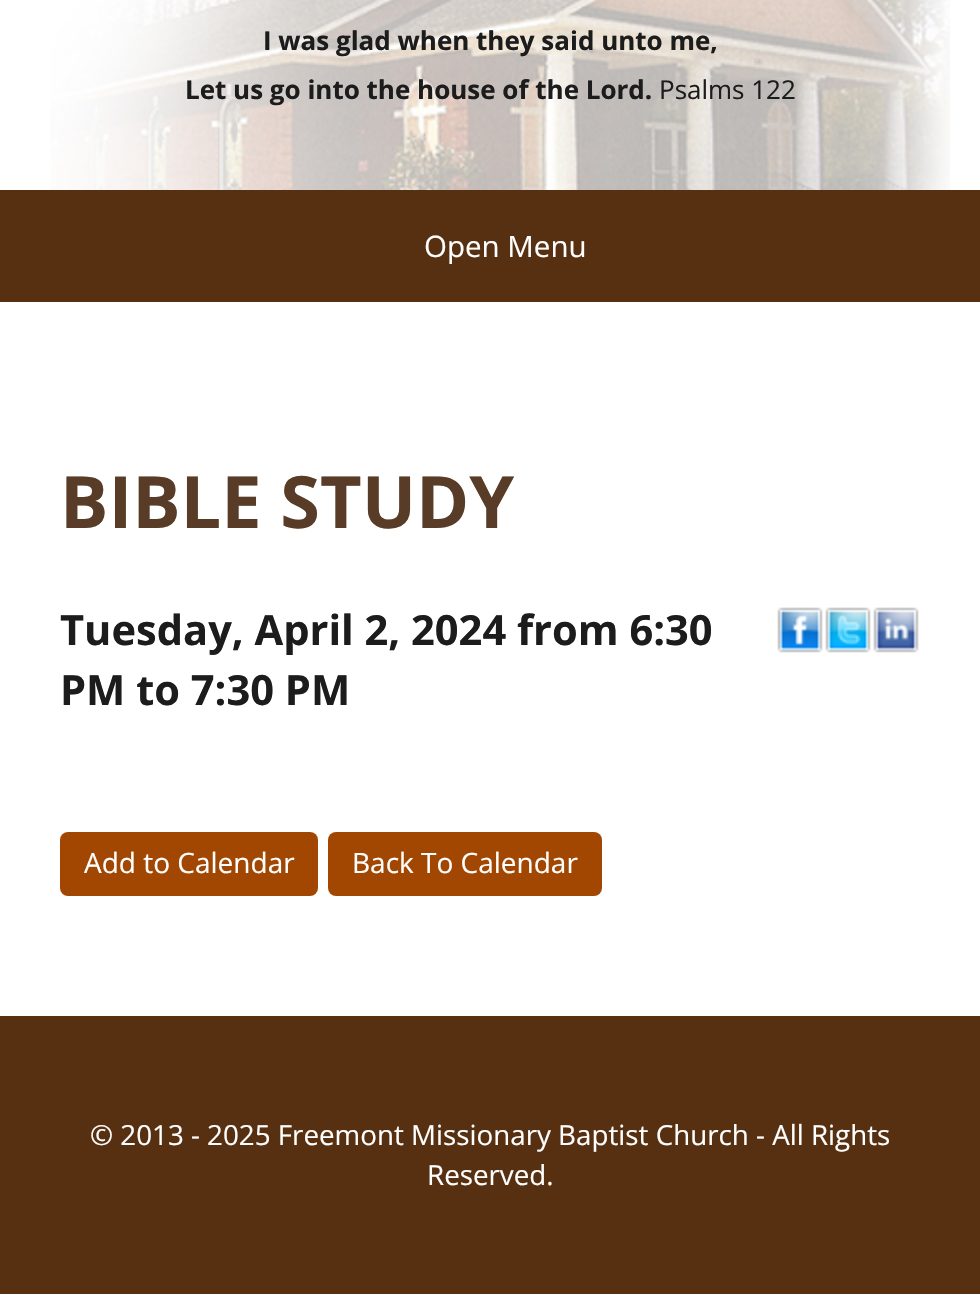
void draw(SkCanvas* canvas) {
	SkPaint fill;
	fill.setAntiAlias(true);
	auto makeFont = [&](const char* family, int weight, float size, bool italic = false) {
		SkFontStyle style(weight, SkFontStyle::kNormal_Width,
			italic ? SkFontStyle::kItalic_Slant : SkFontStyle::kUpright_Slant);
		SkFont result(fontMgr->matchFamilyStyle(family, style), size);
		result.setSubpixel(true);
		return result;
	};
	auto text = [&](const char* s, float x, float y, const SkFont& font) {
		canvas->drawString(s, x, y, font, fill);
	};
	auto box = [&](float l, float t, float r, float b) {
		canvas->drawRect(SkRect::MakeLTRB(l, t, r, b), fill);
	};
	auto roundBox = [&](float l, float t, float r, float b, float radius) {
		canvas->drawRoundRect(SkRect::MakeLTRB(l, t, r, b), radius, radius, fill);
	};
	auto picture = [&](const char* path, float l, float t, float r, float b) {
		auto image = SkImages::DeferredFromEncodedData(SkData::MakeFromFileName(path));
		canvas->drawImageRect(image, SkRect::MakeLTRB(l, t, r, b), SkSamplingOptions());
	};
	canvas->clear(0xFF573012);
	fill.setColor(0xFFFFFFFF);
	box(0, 0, 980, 190);
	picture("image0.png", 50, 0, 950, 190);
	box(0, 302, 980, 1016);
	picture("image1.png", 777, 607, 823, 653);
	picture("image2.png", 825, 607, 871, 653);
	picture("image3.png", 873, 607, 919, 653);
	fill.setColor(0xFFA14702);
	roundBox(60, 832, 318, 896, 8);
	roundBox(328, 832, 602, 896, 8);
	auto font1 = makeFont("Open Sans", 700, 26);
	fill.setColor(0xFF1C1C1C);
	text("I was glad when they said unto me,", 263, 50, font1);
	text("Let us go into the house of the Lord.", 185, 99, font1);
	auto font2 = makeFont("Open Sans", 400, 26);
	text("Psalms 122", 659, 99, font2);
	auto font3 = makeFont("Open Sans", 400, 29.5f);
	fill.setColor(0xFFFFFFFF);
	text("Open Menu", 424, 257, font3);
	auto font4 = makeFont("Open Sans", 700, 72);
	fill.setColor(0xFF593C27);
	text("BIBLE STUDY", 60, 528, font4);
	auto font5 = makeFont("Open Sans", 700, 41.6f);
	fill.setColor(0xFF1C1C1C);
	text("Tuesday, April 2, 2024 from 6:30", 60, 645, font5);
	text("PM to 7:30 PM", 60, 705, font5);
	auto font6 = makeFont("Open Sans", 400, 28);
	fill.setColor(0xFFFFFFFF);
	text("Add to Calendar", 84, 873, font6);
	text("Back To Calendar", 352, 873, font6);
	auto font7 = makeFont("Open Sans", 400, 27.75f);
	text("© 2013 - 2025 Freemont Missionary Baptist Church - All Rights", 90, 1145, font7);
	text("Reserved.", 427, 1185, font7);
}
